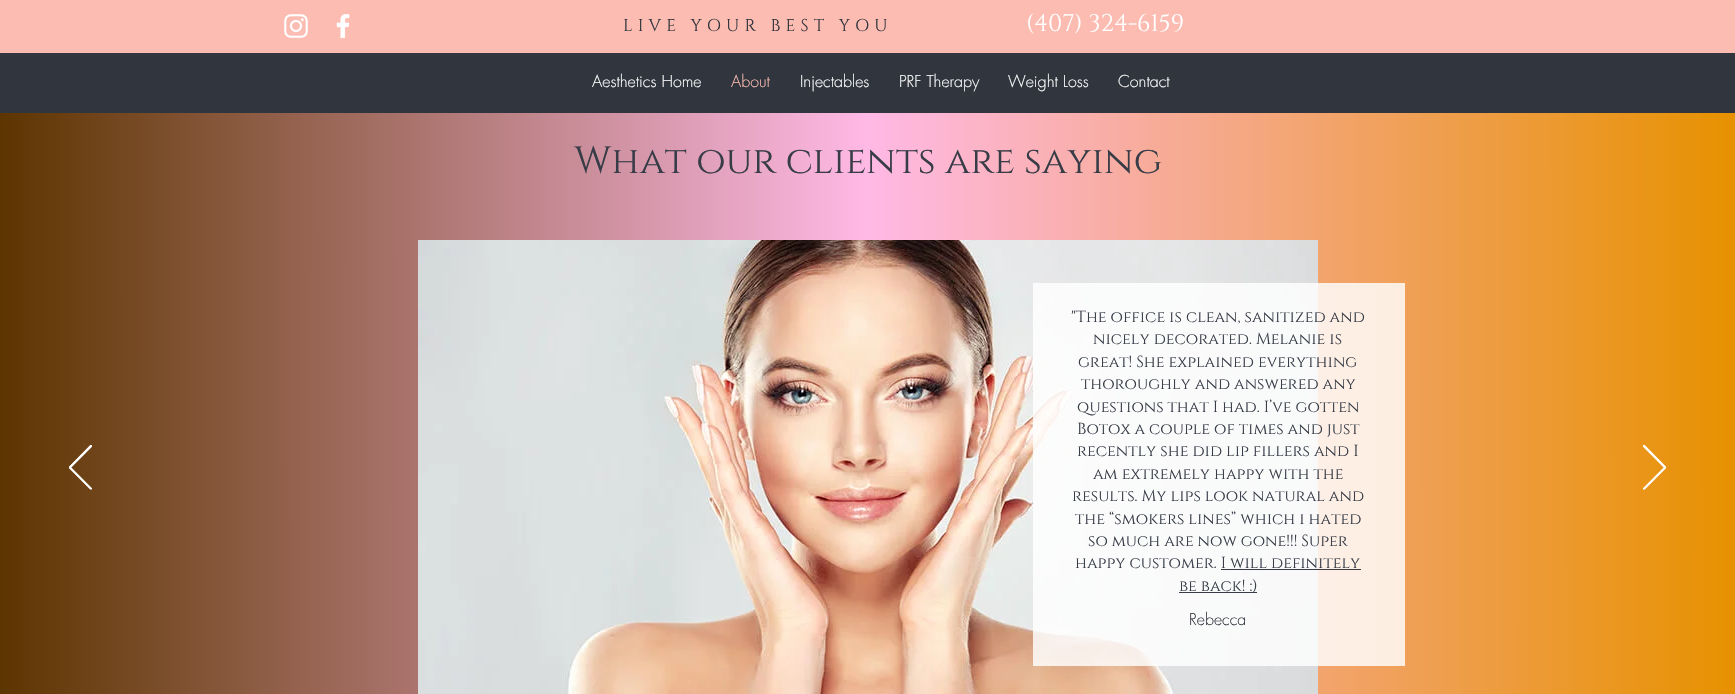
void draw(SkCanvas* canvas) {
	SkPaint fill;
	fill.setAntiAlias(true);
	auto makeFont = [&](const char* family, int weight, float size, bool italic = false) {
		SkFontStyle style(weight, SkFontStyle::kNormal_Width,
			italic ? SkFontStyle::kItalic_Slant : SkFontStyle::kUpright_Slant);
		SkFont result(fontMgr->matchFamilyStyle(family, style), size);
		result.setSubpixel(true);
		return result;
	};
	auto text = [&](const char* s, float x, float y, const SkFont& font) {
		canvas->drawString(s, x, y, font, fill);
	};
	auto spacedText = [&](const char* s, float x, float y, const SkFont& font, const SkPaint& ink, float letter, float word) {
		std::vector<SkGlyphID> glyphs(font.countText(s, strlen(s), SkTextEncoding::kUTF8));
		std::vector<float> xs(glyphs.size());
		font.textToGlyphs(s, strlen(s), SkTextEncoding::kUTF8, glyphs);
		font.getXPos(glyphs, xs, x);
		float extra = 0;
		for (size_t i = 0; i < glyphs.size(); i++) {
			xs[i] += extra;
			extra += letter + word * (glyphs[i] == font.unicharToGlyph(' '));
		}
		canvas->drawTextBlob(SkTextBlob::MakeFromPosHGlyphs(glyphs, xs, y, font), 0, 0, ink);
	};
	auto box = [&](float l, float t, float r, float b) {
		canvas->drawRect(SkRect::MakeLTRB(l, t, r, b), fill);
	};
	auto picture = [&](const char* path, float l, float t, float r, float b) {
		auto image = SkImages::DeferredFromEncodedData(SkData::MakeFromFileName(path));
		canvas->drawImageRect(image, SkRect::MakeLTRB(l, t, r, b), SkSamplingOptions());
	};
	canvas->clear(0xFFFFFFFF);
	fill.setColor(0xFFFCBCB2);
	box(0, 0, 1735, 53);
	picture("image0.png", 284, 14, 308, 38);
	picture("image1.png", 336, 14, 350, 39);
	fill.setColor(0xFF31353D);
	box(0, 53, 1735, 113);
	{
		const SkColor colors[] = {0xFF5D3500, 0xFFFFB9E5, 0xFFE79100};
		const float stops[] = {0, 0.5f, 1};
		const SkPoint ends[] = {{0, 438}, {1735, 437}};
		fill.setShader(SkGradientShader::MakeLinear(ends, colors, stops, 3, SkTileMode::kClamp));
		fill.setAlpha(255);
	}
	box(0, 113, 1735, 694);
	fill.setShader(nullptr);
	fill.setColor(0xFFFFFFFF);
	canvas->drawPath(SkPathBuilder().moveTo(91, 490).lineTo(69, 467).lineTo(91, 445).lineTo(92, 446).lineTo(70, 467).lineTo(92, 489).close().detach(), fill);
	canvas->save();
	canvas->clipRect(SkRect::MakeLTRB(69, 445, 92, 489));
	fill.setStyle(SkPaint::kStroke_Style);
	fill.setStrokeWidth(1.1f);
	canvas->drawPath(SkPathBuilder().moveTo(91, 489.5f).lineTo(69, 467.5f).lineTo(91, 445).lineTo(92, 446).lineTo(70.5f, 467.5f).lineTo(92, 489).close().detach(), fill);
	canvas->restore();
	picture("image2.png", 418, 240, 1318, 694);
	fill.setStyle(SkPaint::kFill_Style);
	fill.setColor(0xD1FFFFFF);
	box(1033, 283, 1405, 666);
	fill.setColor(0xFF373C47);
	box(1221, 569, 1361, 570);
	box(1179, 592, 1257, 593);
	fill.setColor(0xFFFFFFFF);
	canvas->drawPath(SkPathBuilder().moveTo(1644, 490).lineTo(1666, 467).lineTo(1644, 445).lineTo(1643, 446).lineTo(1665, 467).lineTo(1643, 489).close().detach(), fill);
	canvas->save();
	canvas->clipRect(SkRect::MakeLTRB(1643, 445, 1666, 489));
	fill.setStyle(SkPaint::kStroke_Style);
	canvas->drawPath(SkPathBuilder().moveTo(1644, 489.5f).lineTo(1666, 467.5f).lineTo(1644, 445).lineTo(1643, 446).lineTo(1664.5f, 467.5f).lineTo(1643, 489).close().detach(), fill);
	canvas->restore();
	auto font1 = makeFont("Cinzel", 400, 17);
	fill.setStyle(SkPaint::kFill_Style);
	fill.setColor(0xFF31353D);
	spacedText("LIVE YOUR BEST YOU", 623, 31, font1, fill, 5.1f, 0);
	auto font2 = makeFont("Cinzel", 400, 24);
	fill.setColor(0xFFFFFFFF);
	text("(407) 324-6159", 1026, 31, font2);
	auto font3 = makeFont("futura", 300, 16);
	text("Aesthetics Home", 592, 87, font3);
	fill.setColor(0xFFFCBCB2);
	text("About", 731, 87, font3);
	fill.setColor(0xFFFFFFFF);
	text("Injectables", 800, 87, font3);
	text("PRF Therapy", 899, 87, font3);
	text("Weight Loss", 1008, 87, font3);
	text("Contact", 1118, 87, font3);
	auto font4 = makeFont("Cinzel", 400, 38);
	fill.setColor(0xFF373C47);
	text("What our clients are saying", 574, 173, font4);
	auto font5 = makeFont("Cinzel", 400, 16);
	text("\"The office is clean, sanitized and", 1071, 322, font5);
	text("nicely decorated. Melanie is", 1093, 344, font5);
	text("great! She explained everything", 1078, 367, font5);
	text("thoroughly and answered any", 1081, 389, font5);
	text("questions that I had. I’ve gotten", 1077, 412, font5);
	text("Botox a couple of times and just", 1077, 434, font5);
	text("recently she did lip fillers and I", 1077, 456, font5);
	text("am extremely happy with the", 1093, 479, font5);
	text("results. My lips look natural and", 1072, 501, font5);
	text("the “smokers lines” which i hated", 1075, 524, font5);
	text("so much are now gone!!! Super", 1088, 546, font5);
	text("happy customer. I will definitely", 1075, 568, font5);
	text("be back! :)", 1179, 591, font5);
	fill.setColor(0xFF31353D);
	text("Rebecca", 1189, 625, font3);
}
